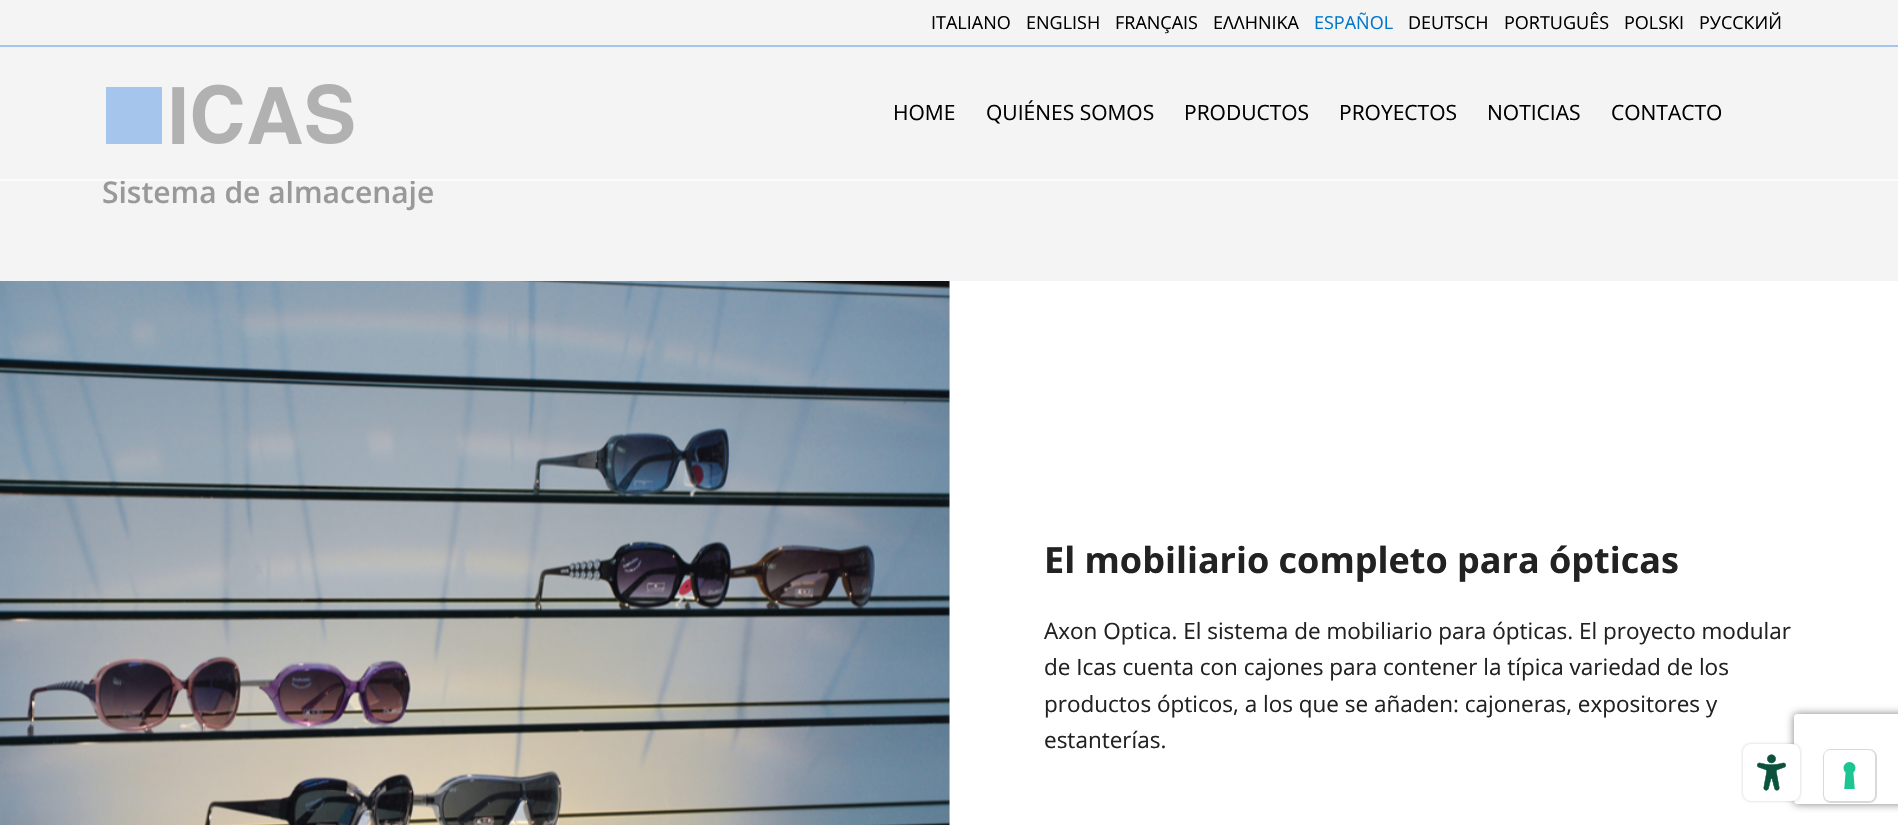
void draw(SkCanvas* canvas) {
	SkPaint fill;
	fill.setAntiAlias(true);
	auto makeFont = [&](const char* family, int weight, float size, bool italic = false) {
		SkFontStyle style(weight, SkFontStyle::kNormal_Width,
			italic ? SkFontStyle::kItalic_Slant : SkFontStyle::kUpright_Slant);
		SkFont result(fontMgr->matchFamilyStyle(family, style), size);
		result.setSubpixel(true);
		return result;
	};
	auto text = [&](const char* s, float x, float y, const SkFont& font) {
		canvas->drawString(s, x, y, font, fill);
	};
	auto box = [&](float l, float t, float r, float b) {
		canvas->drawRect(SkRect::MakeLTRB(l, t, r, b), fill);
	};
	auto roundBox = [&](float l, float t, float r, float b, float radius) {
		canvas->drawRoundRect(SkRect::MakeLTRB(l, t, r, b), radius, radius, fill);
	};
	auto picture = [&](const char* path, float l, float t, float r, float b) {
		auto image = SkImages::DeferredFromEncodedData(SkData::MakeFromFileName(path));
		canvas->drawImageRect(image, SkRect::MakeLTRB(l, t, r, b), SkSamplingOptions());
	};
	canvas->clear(0xFFFFFFFF);
	fill.setColor(0xFFF4F4F4);
	box(0, 0, 1898, 179);
	fill.setColor(0xFFA5C5ED);
	box(0, 45, 1898, 47);
	picture("image0.png", 106, 84, 354, 144);
	fill.setColor(0xFFF4F4F4);
	box(0, 181, 1898, 281);
	box(949, 281, 950, 825);
	picture("image1.png", 0, 281, 950, 825);
	canvas->save();
	canvas->clipPath(SkPathBuilder(SkPathFillType::kEvenOdd).moveTo(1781, 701).lineTo(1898, 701).lineTo(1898, 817).lineTo(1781, 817).close().moveTo(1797, 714).lineTo(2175, 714).cubicTo(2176.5f, 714, 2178, 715.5f, 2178, 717).lineTo(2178, 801).cubicTo(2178, 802.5f, 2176.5f, 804, 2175, 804).lineTo(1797, 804).cubicTo(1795.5f, 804, 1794, 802.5f, 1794, 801).lineTo(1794, 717).cubicTo(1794, 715.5f, 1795.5f, 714, 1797, 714).close().detach(), true);
	fill.setColor(0xFF808080);
	fill.setMaskFilter(SkMaskFilter::MakeBlur(kNormal_SkBlurStyle, 4));
	canvas->drawRoundRect(SkRect::MakeLTRB(1794, 714, 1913, 804), 3, 3, fill);
	fill.setMaskFilter(nullptr);
	canvas->restore();
	fill.setColor(0x33000000);
	fill.setMaskFilter(SkMaskFilter::MakeBlur(kNormal_SkBlurStyle, 1.5f));
	canvas->drawRoundRect(SkRect::MakeLTRB(1743, 744, 1800, 801), 8, 8, fill);
	fill.setMaskFilter(nullptr);
	fill.setColor(0xFFFFFFFF);
	roundBox(1743, 744, 1800, 801, 8);
	picture("image2.png", 1757, 754, 1786, 791);
	fill.setStyle(SkPaint::kStroke_Style);
	fill.setStrokeWidth(2);
	fill.setColor(0xFFD9D9D9);
	canvas->drawRoundRect(SkRect::MakeLTRB(1824, 750, 1876, 802), 7, 7, fill);
	fill.setStyle(SkPaint::kFill_Style);
	fill.setColor(0xFFFFFFFF);
	roundBox(1824, 750, 1875, 801, 6);
	picture("image3.png", 1843, 762, 1856, 789);
	auto font1 = makeFont("Open Sans", 400, 18);
	fill.setColor(0xFF000000);
	text("ITALIANO", 931, 29, font1);
	text("ENGLISH", 1026, 29, font1);
	text("FRANÇAIS", 1115, 29, font1);
	text("ΕΛΛΗΝΙΚΑ", 1213, 29, font1);
	fill.setColor(0xFF0077CC);
	text("ESPAÑOL", 1314, 29, font1);
	fill.setColor(0xFF000000);
	text("DEUTSCH", 1408, 29, font1);
	text("PORTUGUÊS", 1504, 29, font1);
	text("POLSKI", 1624, 29, font1);
	text("РУССКИЙ", 1699, 29, font1);
	auto font2 = makeFont("Open Sans", 400, 21);
	text("HOME", 893, 120, font2);
	text("QUIÉNES SOMOS", 986, 120, font2);
	text("PRODUCTOS", 1184, 120, font2);
	text("PROYECTOS", 1339, 120, font2);
	text("NOTICIAS", 1487, 120, font2);
	text("CONTACTO", 1611, 120, font2);
	auto font3 = makeFont("Open Sans", 600, 30);
	fill.setColor(0xFF999999);
	text("Sistema de almacenaje", 102, 203, font3);
	fill.setColor(0xFFFCFCFC);
	box(0, 179, 1898, 181);
	auto font4 = makeFont("Open Sans", 700, 36);
	fill.setColor(0xFF222222);
	text("El mobiliario completo para ópticas", 1044, 573, font4);
	auto font5 = makeFont("Open Sans", 400, 22.5f);
	text("Axon Optica. El sistema de mobiliario para ópticas. El proyecto modular", 1044, 639, font5);
	text("de Icas cuenta con cajones para contener la típica variedad de los", 1044, 675, font5);
	text("productos ópticos, a los que se añaden: cajoneras, expositores y", 1044, 712, font5);
	text("estanterías.", 1044, 748, font5);
}
